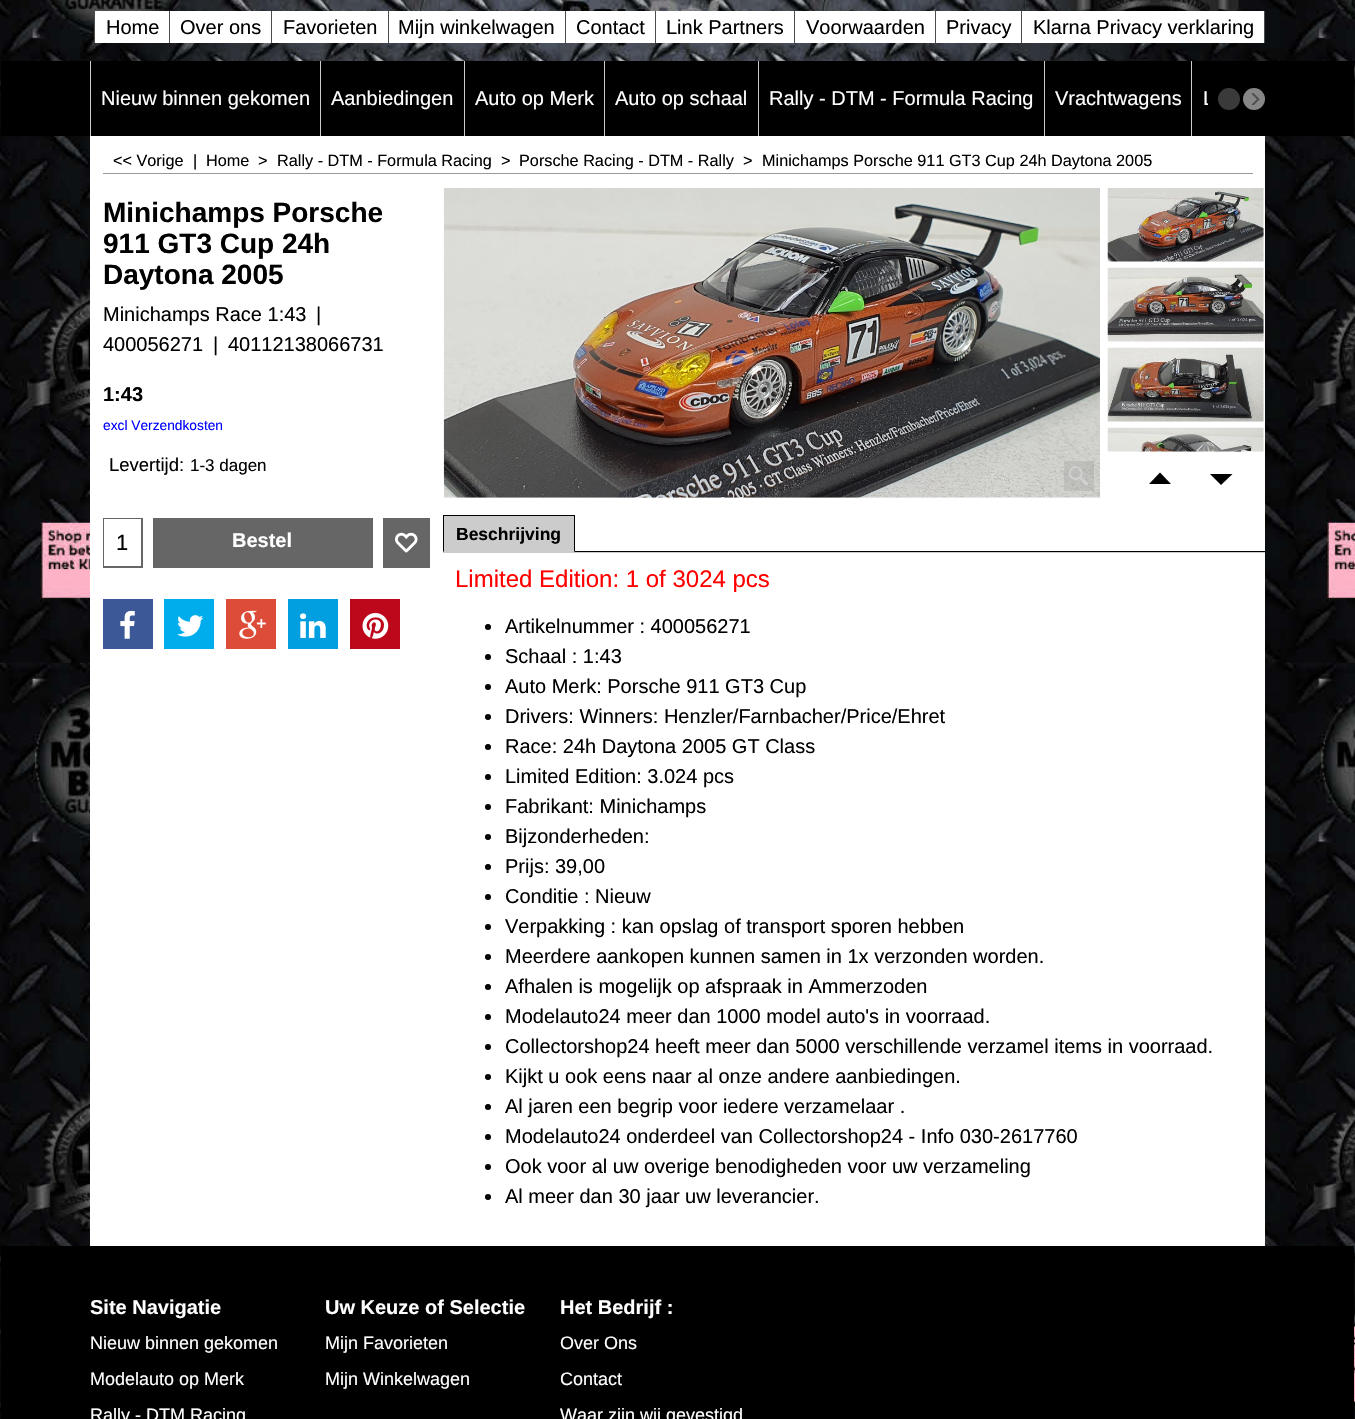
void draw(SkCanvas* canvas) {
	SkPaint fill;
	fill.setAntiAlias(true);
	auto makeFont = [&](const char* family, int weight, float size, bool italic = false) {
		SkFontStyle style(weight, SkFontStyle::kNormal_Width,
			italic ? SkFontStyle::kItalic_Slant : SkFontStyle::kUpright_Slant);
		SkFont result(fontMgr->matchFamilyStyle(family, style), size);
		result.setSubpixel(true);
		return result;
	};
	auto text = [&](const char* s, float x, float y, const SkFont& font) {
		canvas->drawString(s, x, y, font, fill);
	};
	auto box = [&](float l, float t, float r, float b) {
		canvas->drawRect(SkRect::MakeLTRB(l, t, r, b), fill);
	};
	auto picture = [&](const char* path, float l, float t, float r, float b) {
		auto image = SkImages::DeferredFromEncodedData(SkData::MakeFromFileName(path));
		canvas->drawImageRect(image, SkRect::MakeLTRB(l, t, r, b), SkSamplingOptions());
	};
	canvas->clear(0xFFFFFFFF);
	picture("image0.png", 0, 0, 1355, 1419);
	fill.setColor(0xFFFFFFFF);
	box(95, 11, 1264, 43);
	fill.setColor(0xFF4C4C4C);
	box(94, 11, 95, 43);
	box(169, 11, 170, 43);
	box(271, 11, 272, 43);
	box(388, 11, 389, 43);
	box(565, 11, 566, 43);
	box(655, 11, 656, 43);
	box(794, 11, 795, 43);
	box(935, 11, 936, 43);
	box(1021, 11, 1022, 43);
	box(1264, 11, 1265, 43);
	fill.setColor(0xFF000000);
	box(1, 61, 1354, 136);
	fill.setColor(0xFFCCCCCC);
	box(90, 61, 91, 136);
	box(320, 61, 321, 136);
	box(464, 61, 465, 136);
	box(604, 61, 605, 136);
	box(758, 61, 759, 136);
	box(1044, 61, 1045, 136);
	box(1191, 61, 1192, 136);
	fill.setColor(0xFF3A3A3A);
	canvas->drawCircle(1229, 99, 11, fill);
	fill.setColor(0xFF868686);
	canvas->drawCircle(1254, 99, 11, fill);
	picture("image1.png", 1251, 93, 1260, 105);
	fill.setColor(0xFFFFFFFF);
	box(90, 136, 1265, 1246);
	fill.setColor(0xFF999999);
	box(103, 173, 1253, 174);
	fill.setColor(0xFF666666);
	box(103, 518, 143, 568);
	fill.setColor(0xFFFFFFFF);
	box(104, 519, 141, 566);
	fill.setColor(0xFF666666);
	box(153, 518, 373, 568);
	box(383, 518, 430, 568);
	picture("image2.png", 395, 532, 418, 553);
	fill.setColor(0xFF3C5897);
	box(103, 599, 153, 649);
	picture("image3.png", 120, 610, 135, 639);
	fill.setColor(0xFF00ADEC);
	box(164, 599, 214, 649);
	picture("image4.png", 177, 615, 204, 637);
	fill.setColor(0xFFDD4C39);
	box(226, 599, 276, 649);
	picture("image5.png", 239, 610, 266, 639);
	fill.setColor(0xFF019FE0);
	box(288, 599, 338, 649);
	picture("image6.png", 300, 613, 326, 638);
	fill.setColor(0xFFBD081C);
	box(350, 599, 400, 649);
	picture("image7.png", 362, 613, 389, 639);
	picture("image8.png", 443, 188, 1100, 498);
	fill.setColor(0x4D999999);
	box(1064, 461, 1094, 491);
	picture("image9.png", 1068, 466, 1089, 486);
	picture("image10.png", 1107, 188, 1264, 262);
	picture("image11.png", 1107, 267, 1264, 342);
	picture("image12.png", 1107, 347, 1264, 422);
	picture("image13.png", 1107, 427, 1264, 452);
	fill.setColor(0xFF000000);
	canvas->drawPath(SkPathBuilder().moveTo(1171, 484).lineTo(1160, 472.5f).lineTo(1149, 484).close().detach(), fill);
	canvas->drawPath(SkPathBuilder().moveTo(1210, 474).lineTo(1221, 485).lineTo(1232.5f, 474).close().detach(), fill);
	fill.setColor(0xFFCCCCCC);
	box(443, 516, 575, 553);
	fill.setColor(0xFF000000);
	box(443, 515, 575, 516);
	canvas->drawPath(SkPathBuilder().moveTo(575, 515).lineTo(575, 552.5f).lineTo(574, 551).lineTo(574, 516).close().detach(), fill);
	canvas->save();
	canvas->clipRect(SkRect::MakeLTRB(443, 515, 1265, 553));
	canvas->drawPath(SkPathBuilder().moveTo(442.5f, 552.5f).lineTo(442.5f, 515).lineTo(444, 516).lineTo(444, 551).close().detach(), fill);
	canvas->restore();
	fill.setColor(0xFFCCCCCC);
	box(575, 552, 1265, 553);
	fill.setColor(0xFF000000);
	box(575, 551, 1265, 552);
	canvas->drawCircle(488, 627, 3, fill);
	canvas->drawCircle(488, 657, 3, fill);
	canvas->drawCircle(488, 687, 3, fill);
	canvas->drawCircle(488, 717, 3, fill);
	canvas->drawCircle(488, 747, 3, fill);
	canvas->drawCircle(488, 777, 3, fill);
	canvas->drawCircle(488, 807, 3, fill);
	canvas->drawCircle(488, 837, 3, fill);
	canvas->drawCircle(488, 867, 3, fill);
	canvas->drawCircle(488, 897, 3, fill);
	canvas->drawCircle(488, 927, 3, fill);
	canvas->drawCircle(488, 957, 3, fill);
	canvas->drawCircle(488, 987, 3, fill);
	canvas->drawCircle(488, 1017, 3, fill);
	canvas->drawCircle(488, 1047, 3, fill);
	canvas->drawCircle(488, 1077, 3, fill);
	canvas->drawCircle(488, 1107, 3, fill);
	canvas->drawCircle(488, 1137, 3, fill);
	canvas->drawCircle(488, 1167, 3, fill);
	canvas->drawCircle(488, 1197, 3, fill);
	box(1, 1246, 1354, 1419);
	auto font1 = makeFont("Liberation Sans", 400, 20);
	text("Home", 106, 34, font1);
	text("Over ons", 180, 34, font1);
	text("Favorieten", 283, 34, font1);
	text("Mijn winkelwagen", 398, 34, font1);
	text("Contact", 576, 34, font1);
	text("Link Partners", 666, 34, font1);
	text("Voorwaarden", 806, 34, font1);
	text("Privacy", 946, 34, font1);
	text("Klarna Privacy verklaring", 1033, 34, font1);
	fill.setColor(0xFFFFFFFF);
	text("Nieuw binnen gekomen", 101, 105, font1);
	text("Aanbiedingen", 331, 105, font1);
	text("Auto op Merk", 475, 105, font1);
	text("Auto op schaal", 615, 105, font1);
	text("Rally - DTM - Formula Racing", 769, 105, font1);
	text("Vrachtwagens", 1055, 105, font1);
	canvas->save();
	canvas->clipRect(SkRect::MakeLTRB(90, 61, 1208, 136));
	text("L", 1203, 105, font1);
	canvas->restore();
	auto font2 = makeFont("Liberation Sans", 400, 16.25f);
	fill.setColor(0xFF000000);
	text("<< Vorige", 113, 166, font2);
	text("|", 193, 166, font2);
	text("Home", 206, 166, font2);
	text(">", 258, 166, font2);
	text("Rally - DTM - Formula Racing", 277, 166, font2);
	text(">", 501, 166, font2);
	text("Porsche Racing - DTM - Rally", 519, 166, font2);
	text(">", 743, 166, font2);
	text("Minichamps Porsche 911 GT3 Cup 24h Daytona 2005", 762, 166, font2);
	auto font3 = makeFont("Liberation Sans", 700, 28);
	text("Minichamps Porsche", 103, 222, font3);
	text("911 GT3 Cup 24h", 103, 253, font3);
	text("Daytona 2005", 103, 284, font3);
	text("Minichamps Race 1:43", 103, 321, font1);
	text("|", 316, 321, font1);
	text("400056271", 103, 351, font1);
	text("|", 213, 351, font1);
	text("40112138066731", 228, 351, font1);
	auto font4 = makeFont("Liberation Sans", 700, 20);
	text("1:43", 103, 401, font4);
	auto font5 = makeFont("Liberation Sans", 400, 13.75f);
	fill.setColor(0xFF0000FF);
	text("excl Verzendkosten", 103, 430, font5);
	auto font6 = makeFont("Liberation Sans", 400, 18.5f);
	fill.setColor(0xFF000000);
	text("Levertijd:", 109, 471, font6);
	auto font7 = makeFont("Liberation Sans", 400, 17);
	text("1-3 dagen", 190, 471, font7);
	auto font8 = makeFont("Liberation Sans", 400, 22);
	text("1", 116, 550, font8);
	fill.setColor(0xFFFFFFFF);
	text("Bestel", 232, 547, font4);
	auto font9 = makeFont("Liberation Sans", 700, 17.5f);
	fill.setColor(0xFF000000);
	text("Beschrijving", 456, 540, font9);
	auto font10 = makeFont("Liberation Sans", 400, 24);
	fill.setColor(0xFFFF0000);
	text("Limited Edition: 1 of 3024 pcs", 455, 587, font10);
	fill.setColor(0xFF000000);
	text("Artikelnummer : 400056271", 505, 633, font1);
	text("Schaal : 1:43", 505, 663, font1);
	text("Auto Merk: Porsche 911 GT3 Cup", 505, 693, font1);
	text("Drivers: Winners: Henzler/Farnbacher/Price/Ehret", 505, 723, font1);
	text("Race: 24h Daytona 2005 GT Class", 505, 753, font1);
	text("Limited Edition: 3.024 pcs", 505, 783, font1);
	text("Fabrikant: Minichamps", 505, 813, font1);
	text("Bijzonderheden:", 505, 843, font1);
	text("Prijs: 39,00", 505, 873, font1);
	text("Conditie : Nieuw", 505, 903, font1);
	text("Verpakking : kan opslag of transport sporen hebben", 505, 933, font1);
	text("Meerdere aankopen kunnen samen in 1x verzonden worden.", 505, 963, font1);
	text("Afhalen is mogelijk op afspraak in Ammerzoden", 505, 993, font1);
	text("Modelauto24 meer dan 1000 model auto's in voorraad.", 505, 1023, font1);
	text("Collectorshop24 heeft meer dan 5000 verschillende verzamel items in voorraad.", 505, 1053, font1);
	text("Kijkt u ook eens naar al onze andere aanbiedingen.", 505, 1083, font1);
	text("Al jaren een begrip voor iedere verzamelaar .", 505, 1113, font1);
	text("Modelauto24 onderdeel van Collectorshop24 - Info 030-2617760", 505, 1143, font1);
	text("Ook voor al uw overige benodigheden voor uw verzameling", 505, 1173, font1);
	text("Al meer dan 30 jaar uw leverancier.", 505, 1203, font1);
	fill.setColor(0xFFFFFFFF);
	text("Site Navigatie", 90, 1314, font4);
	auto font11 = makeFont("Liberation Sans", 400, 18);
	text("Nieuw binnen gekomen", 90, 1349, font11);
	text("Modelauto op Merk", 90, 1385, font11);
	text("Rally - DTM Racing", 90, 1421, font11);
	text("Uw Keuze of Selectie", 325, 1314, font4);
	text("Mijn Favorieten", 325, 1349, font11);
	text("Mijn Winkelwagen", 325, 1385, font11);
	text("Het Bedrijf :", 560, 1314, font4);
	text("Over Ons", 560, 1349, font11);
	text("Contact", 560, 1385, font11);
	text("Waar zijn wij gevestigd", 560, 1421, font11);
}
